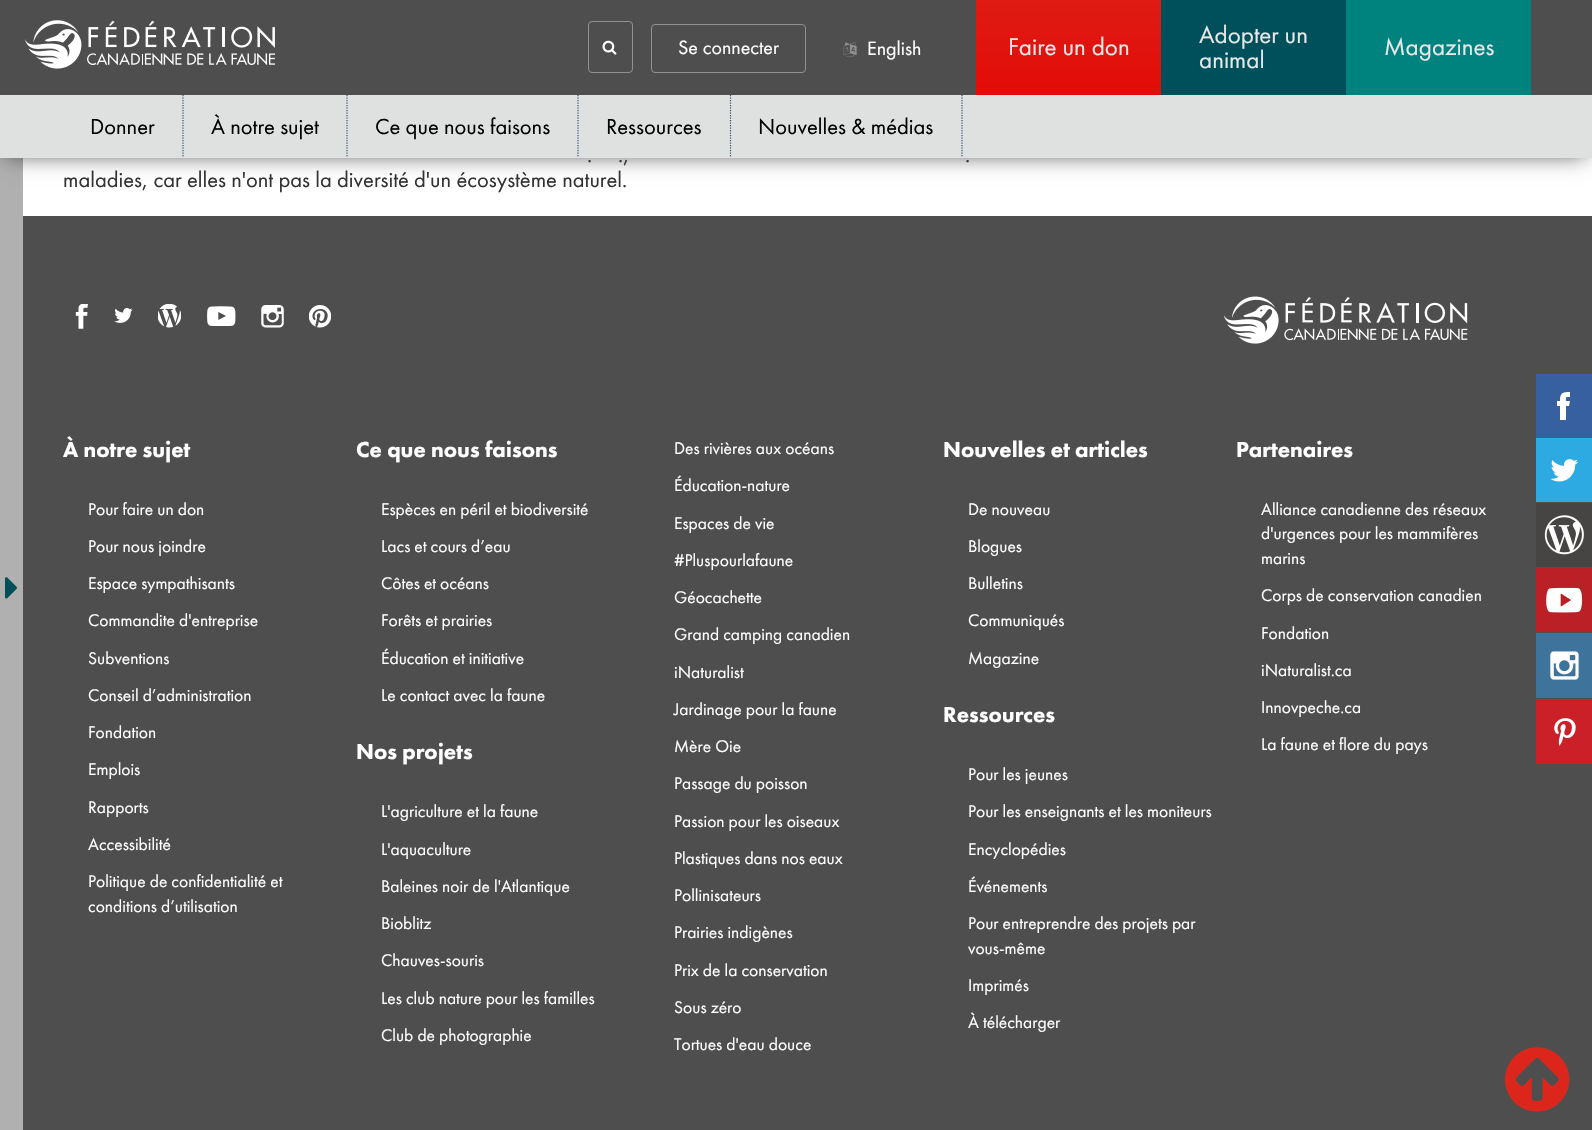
void draw(SkCanvas* canvas) {
	SkPaint fill;
	fill.setAntiAlias(true);
	auto makeFont = [&](const char* family, int weight, float size, bool italic = false) {
		SkFontStyle style(weight, SkFontStyle::kNormal_Width,
			italic ? SkFontStyle::kItalic_Slant : SkFontStyle::kUpright_Slant);
		SkFont result(fontMgr->matchFamilyStyle(family, style), size);
		result.setSubpixel(true);
		return result;
	};
	auto text = [&](const char* s, float x, float y, const SkFont& font) {
		canvas->drawString(s, x, y, font, fill);
	};
	auto box = [&](float l, float t, float r, float b) {
		canvas->drawRect(SkRect::MakeLTRB(l, t, r, b), fill);
	};
	auto picture = [&](const char* path, float l, float t, float r, float b) {
		auto image = SkImages::DeferredFromEncodedData(SkData::MakeFromFileName(path));
		canvas->drawImageRect(image, SkRect::MakeLTRB(l, t, r, b), SkSamplingOptions());
	};
	canvas->clear(0xFFFFFFFF);
	fill.setColor(0xFFB0B0B0);
	box(0, 158, 23, 1130);
	fill.setColor(0xBF000000);
	fill.setMaskFilter(SkMaskFilter::MakeBlur(kNormal_SkBlurStyle, 11));
	canvas->drawRect(SkRect::MakeLTRB(6, 9, 1586, 154), fill);
	fill.setMaskFilter(nullptr);
	fill.setColor(0xFF4E4E4E);
	box(0, 0, 1592, 95);
	picture("image0.png", 25, 20, 275, 69);
	fill.setStyle(SkPaint::kStroke_Style);
	fill.setStrokeWidth(1);
	fill.setColor(0xFF909191);
	canvas->drawRoundRect(SkRect::MakeLTRB(588.5f, 21.5f, 632.5f, 72.5f), 3.5f, 3.5f, fill);
	picture("image1.png", 602, 40, 617, 55);
	canvas->drawRoundRect(SkRect::MakeLTRB(651.5f, 24.5f, 805.5f, 72.5f), 3.5f, 3.5f, fill);
	picture("image2.png", 843, 42, 857, 58);
	fill.setStyle(SkPaint::kFill_Style);
	{
		const SkColor colors[] = {0xFFDC261C, 0xFFE50000};
		const float stops[] = {0, 1};
		const SkPoint ends[] = {{1069, -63}, {1069, 163}};
		fill.setShader(SkGradientShader::MakeLinear(ends, colors, stops, 2, SkTileMode::kClamp));
		fill.setAlpha(255);
	}
	box(976, 0, 1161, 95);
	fill.setShader(nullptr);
	fill.setColor(0xFF00505C);
	box(1161, 0, 1346, 95);
	fill.setColor(0xFF00827F);
	box(1346, 0, 1531, 95);
	fill.setColor(0xFFDFE0E0);
	box(0, 95, 1592, 158);
	fill.setStyle(SkPaint::kStroke_Style);
	fill.setStrokeWidth(1.2f);
	fill.setColor(0xFF365670);
	fill.setPathEffect(SkDashPathEffect::Make({{1.25f, 1.25f}}, 0));
	canvas->drawPath(SkPathBuilder().moveTo(183, 95).lineTo(183, 157.5f).detach(), fill);
	fill.setPathEffect(nullptr);
	fill.setPathEffect(SkDashPathEffect::Make({{1.25f, 1.25f}}, 0));
	canvas->drawPath(SkPathBuilder().moveTo(347, 95).lineTo(347, 157.5f).detach(), fill);
	fill.setPathEffect(nullptr);
	fill.setPathEffect(SkDashPathEffect::Make({{1.25f, 1.25f}}, 0));
	canvas->drawPath(SkPathBuilder().moveTo(578, 95).lineTo(578, 157.5f).detach(), fill);
	fill.setPathEffect(nullptr);
	fill.setPathEffect(SkDashPathEffect::Make({{1.25f, 1.25f}}, 0));
	canvas->drawPath(SkPathBuilder().moveTo(730.5f, 95).lineTo(730.5f, 157.5f).detach(), fill);
	fill.setPathEffect(nullptr);
	fill.setPathEffect(SkDashPathEffect::Make({{1.25f, 1.25f}}, 0));
	canvas->drawPath(SkPathBuilder().moveTo(962, 95).lineTo(962, 157.5f).detach(), fill);
	fill.setPathEffect(nullptr);
	picture("image3.png", 5, 577, 17, 599);
	fill.setStyle(SkPaint::kFill_Style);
	fill.setColor(0xFF4E4E4E);
	box(23, 216, 1592, 1130);
	fill.setColor(0xFF36609F);
	box(1536, 374, 1592, 438);
	fill.setColor(0xFFFFFFFF);
	box(1557, 392, 1570, 420);
	fill.setColor(0xFF36609F);
	canvas->drawPath(SkPathBuilder().moveTo(1536, 379).lineTo(1536, 433).lineTo(1591, 433).lineTo(1591, 379).close().moveTo(1569, 406).lineTo(1566, 406).lineTo(1566, 420).lineTo(1560, 420).lineTo(1560, 406).lineTo(1557, 406).lineTo(1557, 401).lineTo(1560, 401).cubicTo(1560, 393, 1562, 392, 1570, 392).lineTo(1570, 397).cubicTo(1566, 397, 1566, 396, 1566, 401).lineTo(1570, 401).close().detach(), fill);
	picture("image4.png", 1536, 438, 1592, 502);
	picture("image5.png", 1536, 503, 1592, 567);
	picture("image6.png", 1536, 568, 1592, 632);
	picture("image7.png", 1536, 633, 1592, 698);
	picture("image8.png", 1536, 699, 1592, 764);
	picture("image9.png", 1505, 1047, 1570, 1112);
	picture("image10.png", 75, 304, 88, 329);
	picture("image11.png", 114, 308, 133, 323);
	picture("image12.png", 158, 304, 181, 328);
	picture("image13.png", 207, 306, 236, 326);
	picture("image14.png", 261, 305, 284, 328);
	picture("image15.png", 309, 305, 331, 328);
	picture("image16.png", 1224, 296, 1468, 344);
	auto font1 = makeFont("Futura PT", 400, 20);
	fill.setColor(0xFFFFFFFF);
	text("Se connecter", 678, 54, font1);
	text("English", 867, 55, font1);
	auto font2 = makeFont("Futura PT", 400, 25);
	fill.setColor(0xFFE7E8E8);
	text("Faire un don", 1008, 55, font2);
	text("Adopter un", 1199, 43, font2);
	text("animal", 1199, 68, font2);
	text("Magazines", 1384, 55, font2);
	auto font3 = makeFont("Futura PT", 400, 22.5f);
	fill.setColor(0xFF000000);
	text("Donner", 90, 134, font3);
	text("À notre sujet", 211, 134, font3);
	text("Ce que nous faisons", 375, 134, font3);
	text("Ressources", 606, 134, font3);
	text("Nouvelles & médias", 758, 134, font3);
	fill.setColor(0xFF333333);
	text(".", 587, 162, font3);
	text(".,", 618, 162, font3);
	text(".", 965, 162, font3);
	text("maladies, car elles n'ont pas la diversité d'un écosystème naturel.", 63, 187, font3);
	auto font4 = makeFont("Futura PT", 900, 22.5f);
	fill.setColor(0xFFFFFFFF);
	text("À notre sujet", 63, 457, font4);
	auto font5 = makeFont("Futura PT", 400, 17.5f);
	text("Pour faire un don", 88, 515, font5);
	text("Pour nous joindre", 88, 552, font5);
	text("Espace sympathisants", 88, 589, font5);
	text("Commandite d'entreprise", 88, 626, font5);
	text("Subventions", 88, 664, font5);
	text("Conseil d’administration", 88, 701, font5);
	text("Fondation", 88, 738, font5);
	text("Emplois", 88, 775, font5);
	text("Rapports", 88, 813, font5);
	text("Accessibilité", 88, 850, font5);
	text("Politique de confidentialité et", 88, 887, font5);
	text("conditions d’utilisation", 88, 912, font5);
	text("Ce que nous faisons", 356, 457, font4);
	text("Espèces en péril et biodiversité", 381, 515, font5);
	text("Lacs et cours d’eau", 381, 552, font5);
	text("Côtes et océans", 381, 589, font5);
	text("Forêts et prairies", 381, 626, font5);
	text("Éducation et initiative", 381, 664, font5);
	text("Le contact avec la faune", 381, 701, font5);
	text("Nos projets", 356, 759, font4);
	text("L'agriculture et la faune", 381, 817, font5);
	text("L'aquaculture", 381, 855, font5);
	text("Baleines noir de l'Atlantique", 381, 892, font5);
	text("Bioblitz", 381, 929, font5);
	text("Chauves-souris", 381, 966, font5);
	text("Les club nature pour les familles", 381, 1004, font5);
	text("Club de photographie", 381, 1041, font5);
	text("Des rivières aux océans", 674, 454, font5);
	text("Éducation-nature", 674, 491, font5);
	text("Espaces de vie", 674, 529, font5);
	text("#Pluspourlafaune", 674, 566, font5);
	text("Géocachette", 674, 603, font5);
	text("Grand camping canadien", 674, 640, font5);
	text("iNaturalist", 674, 678, font5);
	text("Jardinage pour la faune", 674, 715, font5);
	text("Mère Oie", 674, 752, font5);
	text("Passage du poisson", 674, 789, font5);
	text("Passion pour les oiseaux", 674, 827, font5);
	text("Plastiques dans nos eaux", 674, 864, font5);
	text("Pollinisateurs", 674, 901, font5);
	text("Prairies indigènes", 674, 938, font5);
	text("Prix de la conservation", 674, 976, font5);
	text("Sous zéro", 674, 1013, font5);
	text("Tortues d'eau douce", 674, 1050, font5);
	text("Nouvelles et articles", 943, 457, font4);
	text("De nouveau", 968, 515, font5);
	text("Blogues", 968, 552, font5);
	text("Bulletins", 968, 589, font5);
	text("Communiqués", 968, 626, font5);
	text("Magazine", 968, 664, font5);
	text("Ressources", 943, 722, font4);
	text("Pour les jeunes", 968, 780, font5);
	text("Pour les enseignants et les moniteurs", 968, 817, font5);
	text("Encyclopédies", 968, 855, font5);
	text("Événements", 968, 892, font5);
	text("Pour entreprendre des projets par", 968, 929, font5);
	text("vous-même", 968, 954, font5);
	text("Imprimés", 968, 991, font5);
	text("À télécharger", 968, 1028, font5);
	text("Partenaires", 1236, 457, font4);
	text("Alliance canadienne des réseaux", 1261, 515, font5);
	text("d'urgences pour les mammifères", 1261, 539, font5);
	text("marins", 1261, 564, font5);
	text("Corps de conservation canadien", 1261, 601, font5);
	text("Fondation", 1261, 639, font5);
	text("iNaturalist.ca", 1261, 676, font5);
	text("Innovpeche.ca", 1261, 713, font5);
	text("La faune et flore du pays", 1261, 750, font5);
}
